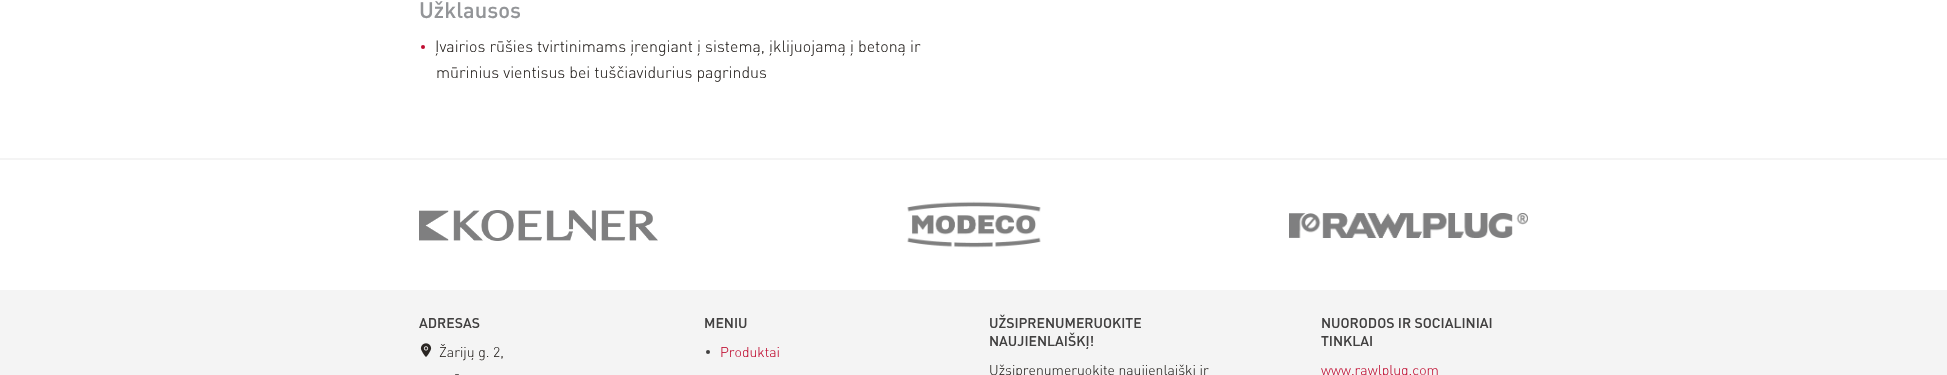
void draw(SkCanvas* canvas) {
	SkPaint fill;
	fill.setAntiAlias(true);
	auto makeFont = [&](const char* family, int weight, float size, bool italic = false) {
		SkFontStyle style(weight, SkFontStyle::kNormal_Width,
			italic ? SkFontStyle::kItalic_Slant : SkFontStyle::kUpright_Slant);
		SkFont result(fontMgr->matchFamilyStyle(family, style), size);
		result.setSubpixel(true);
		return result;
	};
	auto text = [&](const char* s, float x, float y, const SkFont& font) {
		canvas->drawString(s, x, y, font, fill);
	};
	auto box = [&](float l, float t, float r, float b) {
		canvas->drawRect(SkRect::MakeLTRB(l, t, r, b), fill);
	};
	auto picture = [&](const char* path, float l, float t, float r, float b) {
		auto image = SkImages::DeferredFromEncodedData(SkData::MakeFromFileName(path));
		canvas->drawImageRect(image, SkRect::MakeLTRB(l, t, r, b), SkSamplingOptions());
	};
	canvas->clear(0xFFF4F4F4);
	fill.setColor(0xFFFFFFFF);
	box(0, 0, 1947, 158);
	fill.setColor(0xFFC00C30);
	canvas->drawCircle(423, 47, 2, fill);
	fill.setColor(0xFFFFFFFF);
	box(0, 160, 1947, 290);
	picture("image0.png", 419, 210, 658, 241);
	picture("image1.png", 907, 201, 1041, 248);
	picture("image2.png", 1289, 213, 1528, 238);
	picture("image3.png", 420, 343, 432, 357);
	fill.setColor(0xFF414040);
	canvas->drawCircle(708, 352, 2, fill);
	auto font1 = makeFont("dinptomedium", 500, 22);
	fill.setColor(0xFF939598);
	text("Užklausos", 419, 18, font1);
	auto font2 = makeFont("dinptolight", 300, 16);
	fill.setColor(0xFF2A2623);
	text("Įvairios rūšies tvirtinimams įrengiant į sistemą, įklijuojamą į betoną ir", 435, 52, font2);
	text("mūrinius vientisus bei tuščiavidurius pagrindus", 436, 78, font2);
	auto font3 = makeFont("dinptomedium", 500, 14);
	fill.setColor(0xFF414040);
	text("АDRESAS", 419, 328, font3);
	auto font4 = makeFont("dinptolight", 300, 14);
	fill.setColor(0xFF2A2623);
	text("Žarijų g. 2,", 439, 357, font4);
	text("-", 454, 378, font4);
	fill.setColor(0xFF414040);
	text("МENIU", 704, 328, font3);
	fill.setColor(0xFFC00C30);
	text("Produktai", 720, 357, font4);
	fill.setColor(0xFF414040);
	text("UŽSIPRENUMERUOKITE", 989, 328, font3);
	text("NAUJIENLAIŠKĮ!", 989, 346, font3);
	fill.setColor(0xFF2A2623);
	text("Užsiprenumeruokite naujienlaiškį ir", 989, 375, font4);
	fill.setColor(0xFF414040);
	text("NUORODOS IR SOCIALINIAI", 1321, 328, font3);
	text("TINKLAI", 1321, 346, font3);
	fill.setColor(0xFFC00C30);
	text("www.rawlplug.com", 1321, 375, font4);
}
